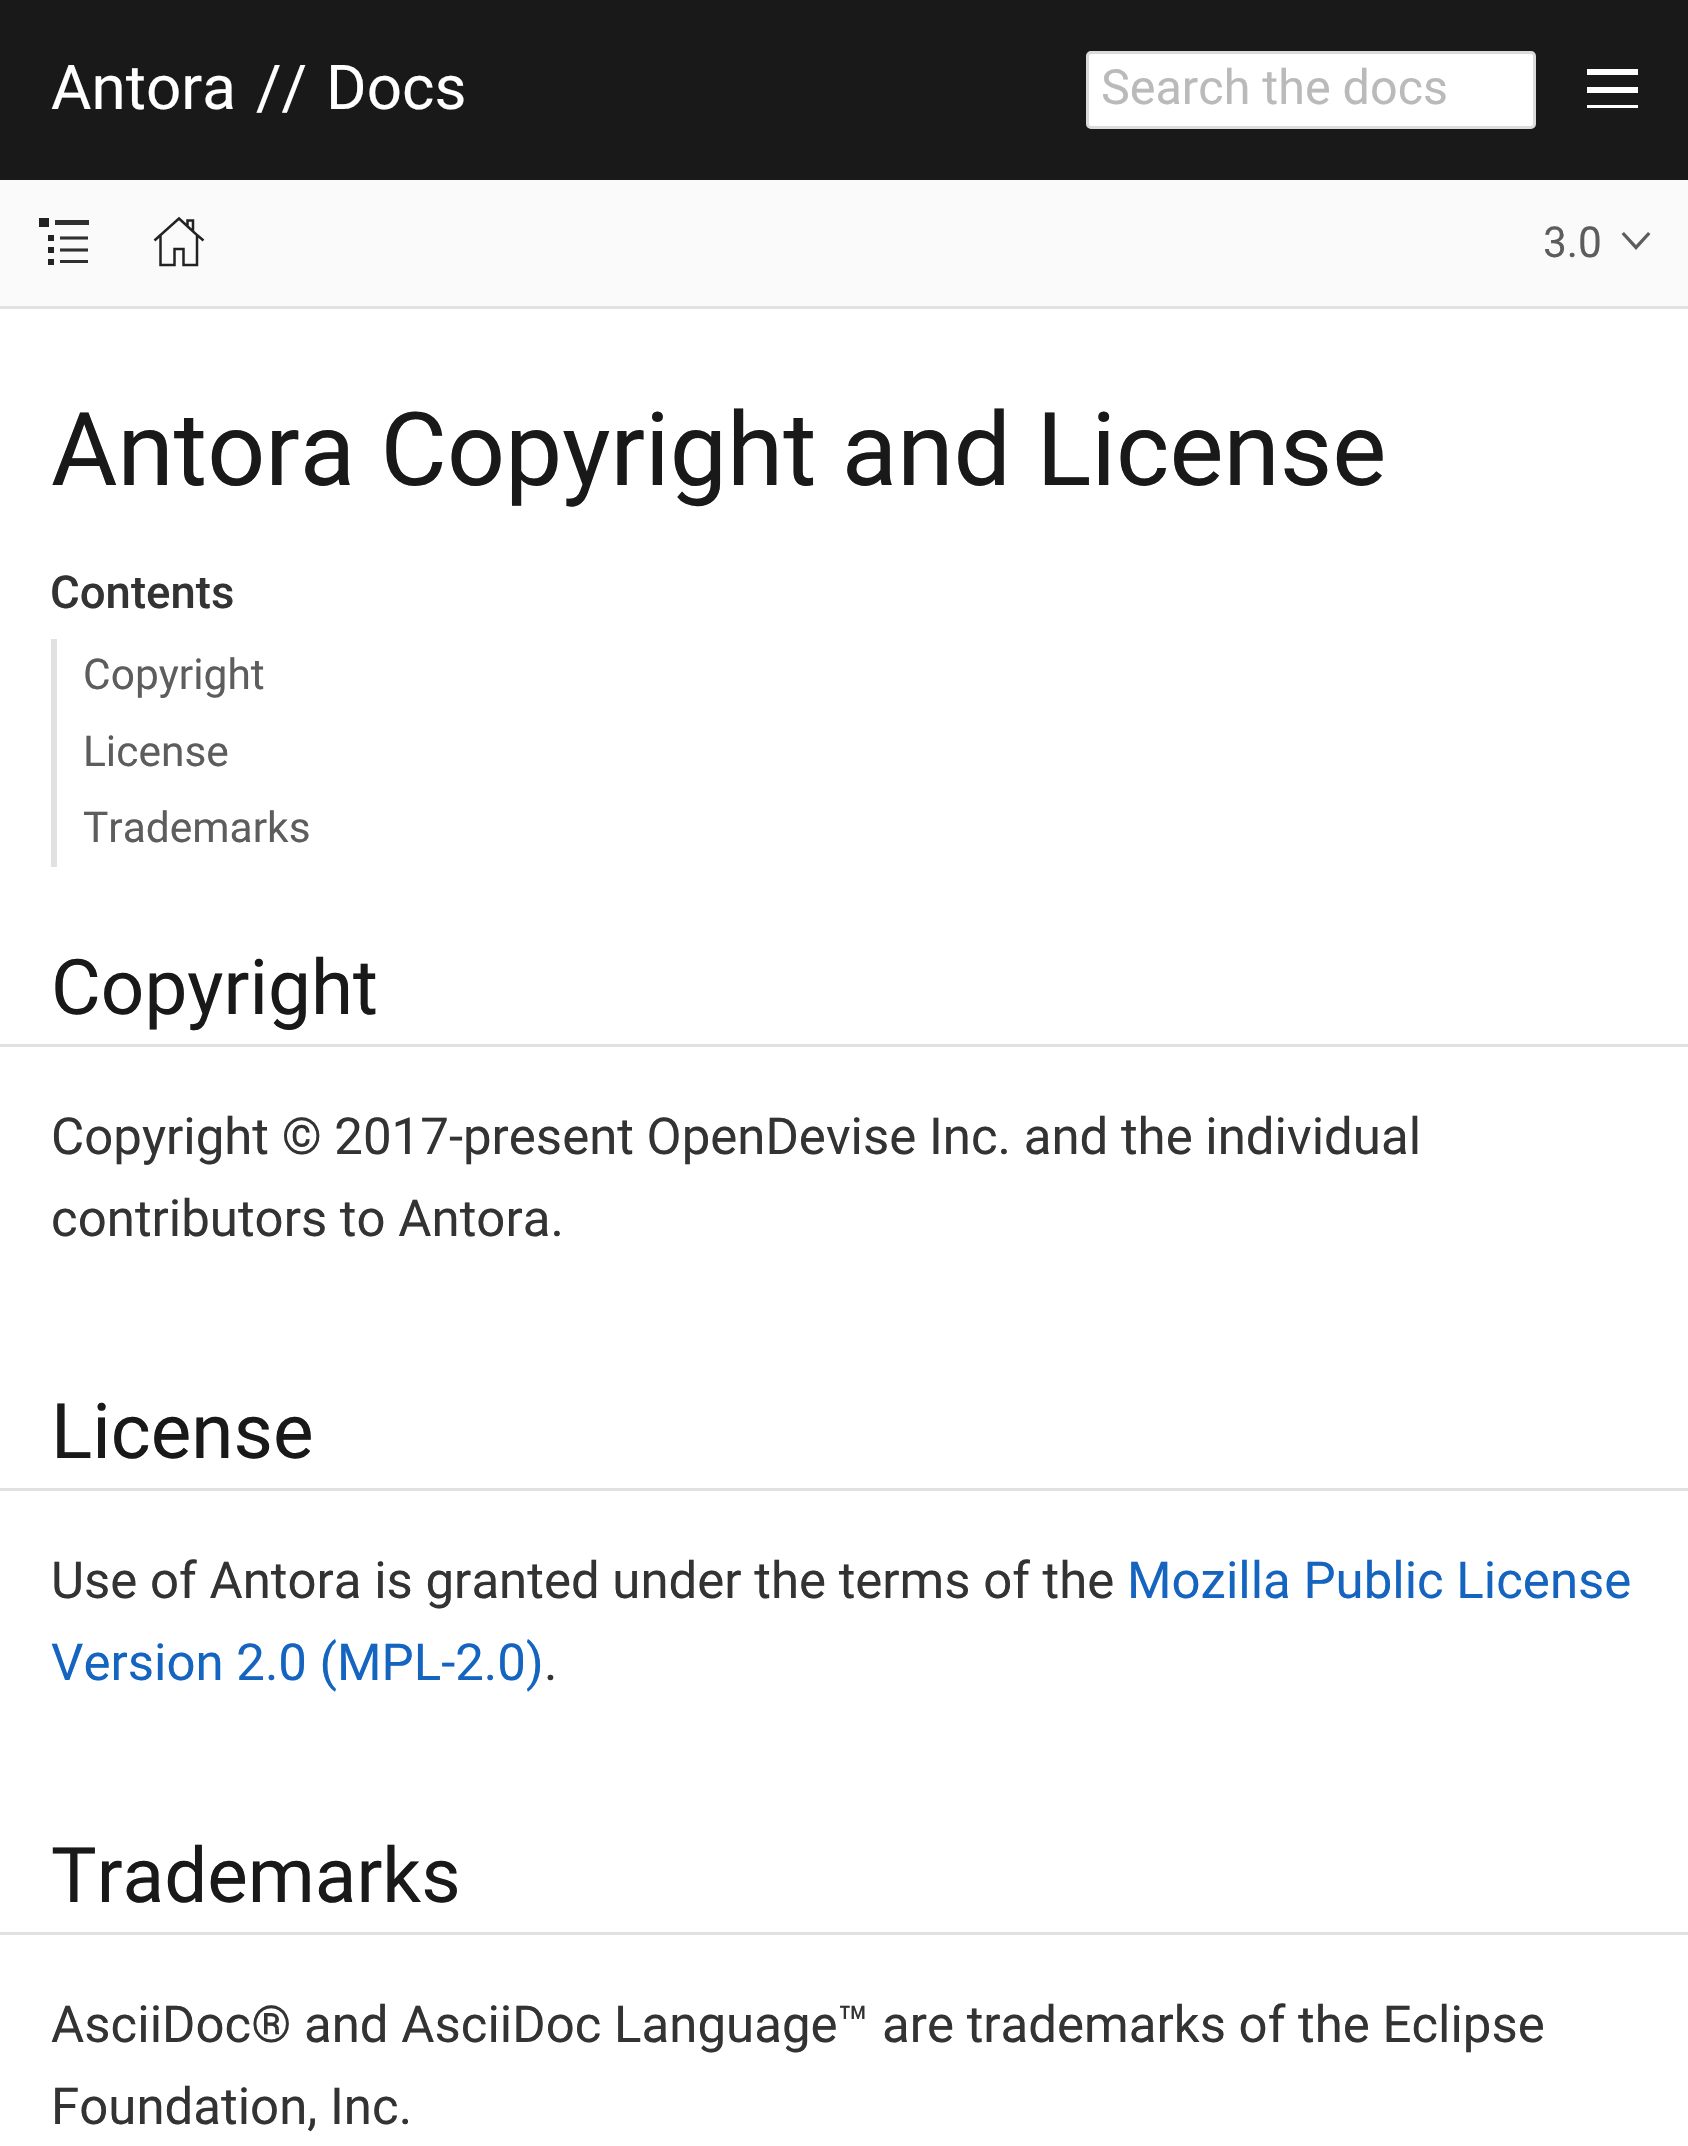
void draw(SkCanvas* canvas) {
	SkPaint fill;
	fill.setAntiAlias(true);
	auto makeFont = [&](const char* family, int weight, float size, bool italic = false) {
		SkFontStyle style(weight, SkFontStyle::kNormal_Width,
			italic ? SkFontStyle::kItalic_Slant : SkFontStyle::kUpright_Slant);
		SkFont result(fontMgr->matchFamilyStyle(family, style), size);
		result.setSubpixel(true);
		return result;
	};
	auto text = [&](const char* s, float x, float y, const SkFont& font) {
		canvas->drawString(s, x, y, font, fill);
	};
	auto box = [&](float l, float t, float r, float b) {
		canvas->drawRect(SkRect::MakeLTRB(l, t, r, b), fill);
	};
	canvas->clear(0xFFFFFFFF);
	fill.setColor(0xFF191919);
	box(0, 0, 1688, 180);
	fill.setColor(0xFFFFFFFF);
	canvas->drawRoundRect(SkRect::MakeLTRB(1087.5f, 52.5f, 1534.5f, 127.5f), 3.5f, 3.5f, fill);
	fill.setStyle(SkPaint::kStroke_Style);
	fill.setStrokeWidth(3);
	fill.setColor(0xFFDBDBDB);
	canvas->drawRoundRect(SkRect::MakeLTRB(1087.5f, 52.5f, 1534.5f, 127.5f), 3.5f, 3.5f, fill);
	fill.setStyle(SkPaint::kFill_Style);
	fill.setColor(0xFFFFFFFF);
	box(1587, 69, 1638, 75);
	box(1587, 87, 1638, 93);
	box(1587, 105, 1638, 108);
	fill.setColor(0xFFE1E1E1);
	box(0, 306, 1688, 309);
	fill.setColor(0xFFFAFAFA);
	box(0, 180, 1688, 306);
	fill.setColor(0xFF2F2F2F);
	box(55, 220, 89, 225);
	fill.setColor(0xFF222222);
	box(39, 218, 49, 227);
	fill.setStyle(SkPaint::kStroke_Style);
	fill.setStrokeWidth(3.1f);
	fill.setColor(0xFF2F2F2F);
	canvas->drawPath(SkPathBuilder().moveTo(60, 250).lineTo(88, 250).detach(), fill);
	fill.setStyle(SkPaint::kFill_Style);
	fill.setColor(0xFF222222);
	box(48, 247, 54, 253);
	fill.setColor(0xFF2F2F2F);
	box(60, 260, 88, 263);
	fill.setColor(0xFF222222);
	box(48, 259, 54, 265);
	fill.setStyle(SkPaint::kStroke_Style);
	fill.setColor(0xFF2F2F2F);
	canvas->drawPath(SkPathBuilder().moveTo(60, 238).lineTo(88, 238).detach(), fill);
	fill.setStyle(SkPaint::kFill_Style);
	fill.setColor(0xFF222222);
	box(48, 235, 54, 241);
	fill.setStyle(SkPaint::kStroke_Style);
	fill.setStrokeWidth(2.5f);
	canvas->drawPath(SkPathBuilder().moveTo(179, 218.5f).lineTo(160.5f, 235).lineTo(160.5f, 265).lineTo(174.5f, 265).lineTo(174.5f, 249).lineTo(183.5f, 249).lineTo(183.5f, 265).lineTo(197, 265).lineTo(197, 235).close().moveTo(187.5f, 226.5f).lineTo(187.5f, 220.5f).lineTo(193, 220.5f).lineTo(193, 231.5f).close().moveTo(160.5f, 235).lineTo(154.5f, 240.5f).moveTo(203.5f, 240.5f).lineTo(197, 235).detach(), fill);
	fill.setStyle(SkPaint::kFill_Style);
	fill.setColor(0xFF5D5D5D);
	canvas->drawPath(SkPathBuilder().moveTo(1624, 232).lineTo(1621.5f, 234).lineTo(1636, 250).lineTo(1650.5f, 234).lineTo(1648, 232).lineTo(1636, 245).close().detach(), fill);
	fill.setColor(0xFFE1E1E1);
	box(51, 639, 57, 867);
	box(0, 1044, 1688, 1047);
	box(0, 1488, 1688, 1491);
	box(0, 1932, 1688, 1935);
	auto font1 = makeFont("Roboto", 400, 62);
	fill.setColor(0xFFFFFFFF);
	text("Antora", 51, 109, font1);
	text("//", 256, 109, font1);
	text("Docs", 326, 109, font1);
	auto font2 = makeFont("Roboto", 400, 48.5f);
	fill.setColor(0xFFBABABA);
	text("Search the docs", 1101, 104, font2);
	auto font3 = makeFont("Roboto", 400, 42.5f);
	fill.setColor(0xFF5D5D5D);
	text("3.0", 1543, 257, font3);
	auto font4 = makeFont("Roboto", 400, 102);
	fill.setColor(0xFF191919);
	text("Antora Copyright and License", 51, 485, font4);
	auto font5 = makeFont("Roboto", 500, 45.5f);
	fill.setColor(0xFF333333);
	text("Contents", 50, 608, font5);
	fill.setColor(0xFF5D5D5D);
	text("Copyright", 83, 689, font3);
	text("License", 83, 766, font3);
	text("Trademarks", 83, 842, font3);
	auto font6 = makeFont("Roboto", 400, 76.5f);
	fill.setColor(0xFF191919);
	text("Copyright", 51, 1014, font6);
	auto font7 = makeFont("Roboto", 400, 51);
	fill.setColor(0xFF333333);
	text("Copyright © 2017-present OpenDevise Inc. and the individual", 51, 1154, font7);
	text("contributors to Antora.", 51, 1236, font7);
	fill.setColor(0xFF191919);
	text("License", 51, 1458, font6);
	fill.setColor(0xFF333333);
	text("Use of Antora is granted under the terms of the", 51, 1598, font7);
	fill.setColor(0xFF1565C0);
	text("Mozilla Public License", 1127, 1598, font7);
	text("Version 2.0 (MPL-2.0)", 51, 1680, font7);
	fill.setColor(0xFF333333);
	text(".", 544, 1680, font7);
	fill.setColor(0xFF191919);
	text("Trademarks", 51, 1902, font6);
	fill.setColor(0xFF333333);
	text("AsciiDoc® and AsciiDoc Language™ are trademarks of the Eclipse", 51, 2042, font7);
	text("Foundation, Inc.", 51, 2124, font7);
}
